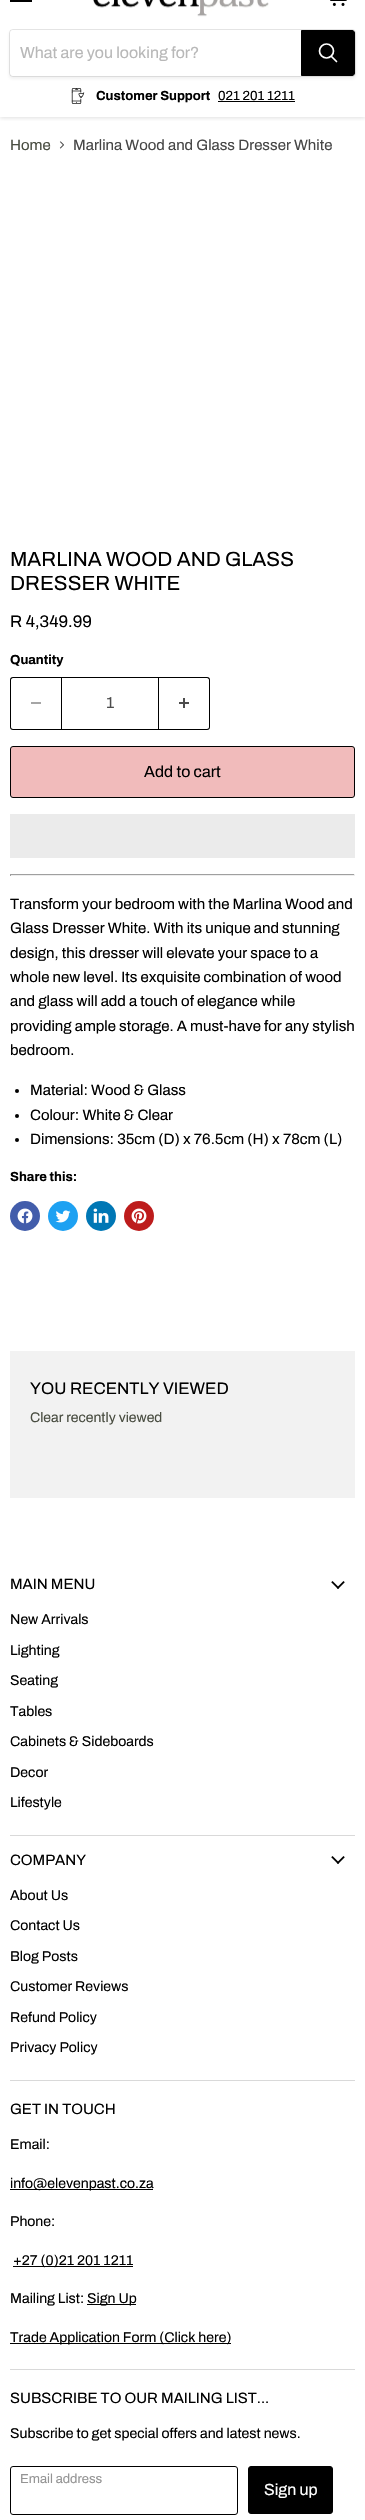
void draw(SkCanvas* canvas) {
	SkPaint fill;
	fill.setAntiAlias(true);
	auto makeFont = [&](const char* family, int weight, float size, bool italic = false) {
		SkFontStyle style(weight, SkFontStyle::kNormal_Width,
			italic ? SkFontStyle::kItalic_Slant : SkFontStyle::kUpright_Slant);
		SkFont result(fontMgr->matchFamilyStyle(family, style), size);
		result.setSubpixel(true);
		return result;
	};
	auto text = [&](const char* s, float x, float y, const SkFont& font) {
		canvas->drawString(s, x, y, font, fill);
	};
	auto box = [&](float l, float t, float r, float b) {
		canvas->drawRect(SkRect::MakeLTRB(l, t, r, b), fill);
	};
	auto picture = [&](const char* path, float l, float t, float r, float b) {
		auto image = SkImages::DeferredFromEncodedData(SkData::MakeFromFileName(path));
		canvas->drawImageRect(image, SkRect::MakeLTRB(l, t, r, b), SkSamplingOptions());
	};
	canvas->clear(0xFFFFFFFF);
	canvas->save();
	canvas->clipRect(SkRect::MakeLTRB(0, 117, 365, 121));
	fill.setColor(0x40808080);
	fill.setMaskFilter(SkMaskFilter::MakeBlur(kNormal_SkBlurStyle, 2));
	canvas->drawRect(SkRect::MakeLTRB(0, -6, 365, 118), fill);
	fill.setMaskFilter(nullptr);
	canvas->restore();
	fill.setColor(0xFF000000);
	box(10, 0, 32, 2);
	picture("image0.png", 330, 0, 347, 6);
	picture("image1.png", 93, 0, 269, 17);
	fill.setColor(0x1C808080);
	fill.setMaskFilter(SkMaskFilter::MakeBlur(kNormal_SkBlurStyle, 1.5f));
	canvas->drawRoundRect(SkRect::MakeLTRB(9, 31, 356, 79), 4, 4, fill);
	fill.setMaskFilter(nullptr);
	fill.setStyle(SkPaint::kStroke_Style);
	fill.setStrokeWidth(1);
	fill.setColor(0x33808080);
	canvas->drawRoundRect(SkRect::MakeLTRB(9.5f, 29.5f, 355.5f, 76.5f), 3.5f, 3.5f, fill);
	fill.setStyle(SkPaint::kFill_Style);
	fill.setColor(0xFFFFFFFF);
	canvas->drawPath(SkPathBuilder().moveTo(13, 30).lineTo(301, 30).lineTo(301, 76).lineTo(13, 76).cubicTo(11.5f, 76, 10, 74.5f, 10, 73).lineTo(10, 33).cubicTo(10, 31.5f, 11.5f, 30, 13, 30).close().detach(), fill);
	fill.setColor(0xFF000000);
	canvas->drawPath(SkPathBuilder().moveTo(301.5f, 30.5f).lineTo(352, 30.5f).cubicTo(353.5f, 30.5f, 354.5f, 31.5f, 354.5f, 33).lineTo(354.5f, 73).cubicTo(354.5f, 74.5f, 353.5f, 75.5f, 352, 75.5f).lineTo(301.5f, 75.5f).close().detach(), fill);
	fill.setStyle(SkPaint::kStroke_Style);
	canvas->drawPath(SkPathBuilder().moveTo(301.5f, 30.5f).lineTo(352, 30.5f).cubicTo(353.5f, 30.5f, 354.5f, 31.5f, 354.5f, 33).lineTo(354.5f, 73).cubicTo(354.5f, 74.5f, 353.5f, 75.5f, 352, 75.5f).lineTo(301.5f, 75.5f).close().detach(), fill);
	fill.setStrokeWidth(1.7f);
	fill.setStrokeCap(SkPaint::kRound_Cap);
	fill.setColor(0xFFFFFFFF);
	canvas->drawPath(SkPathBuilder().moveTo(336.5f, 61.5f).lineTo(331.5f, 56.5f).detach(), fill);
	fill.setStrokeCap(SkPaint::kButt_Cap);
	canvas->drawCircle(326.5f, 51, 7, fill);
	picture("image2.png", 71, 88, 85, 104);
	fill.setStyle(SkPaint::kFill_Style);
	fill.setColor(0xFF000000);
	box(218, 101, 295, 102);
	picture("image3.png", 59, 141, 64, 149);
	canvas->drawPath(SkPathBuilder(SkPathFillType::kEvenOdd).moveTo(13, 677).lineTo(61, 677).lineTo(61, 730).lineTo(13, 730).cubicTo(11, 730, 10, 729, 10, 727).lineTo(10, 680).cubicTo(10, 678, 11, 677, 13, 677).close().moveTo(13, 678).lineTo(61, 678).lineTo(61, 729).lineTo(13, 729).cubicTo(12, 729, 11, 728, 11, 727).lineTo(11, 680).cubicTo(11, 679, 12, 678, 13, 678).close().detach(), fill);
	fill.setColor(0xFFA6A6A6);
	box(31, 702, 41, 704);
	fill.setStyle(SkPaint::kStroke_Style);
	fill.setStrokeWidth(1);
	fill.setColor(0xFF000000);
	canvas->drawRect(SkRect::MakeLTRB(61.5f, 677.5f, 158.5f, 729.5f), fill);
	fill.setStyle(SkPaint::kFill_Style);
	canvas->drawPath(SkPathBuilder(SkPathFillType::kEvenOdd).moveTo(159, 677).lineTo(207, 677).cubicTo(209, 677, 210, 678, 210, 680).lineTo(210, 727).cubicTo(210, 729, 209, 730, 207, 730).lineTo(159, 730).close().moveTo(159, 678).lineTo(207, 678).cubicTo(208, 678, 209, 679, 209, 680).lineTo(209, 727).cubicTo(209, 728, 208, 729, 207, 729).lineTo(159, 729).close().detach(), fill);
	picture("image4.png", 179, 698, 189, 708);
	fill.setColor(0xFFF1BBBB);
	canvas->drawRoundRect(SkRect::MakeLTRB(10.5f, 746.5f, 354.5f, 797.5f), 2.5f, 2.5f, fill);
	fill.setStyle(SkPaint::kStroke_Style);
	fill.setColor(0xFF000000);
	canvas->drawRoundRect(SkRect::MakeLTRB(10.5f, 746.5f, 354.5f, 797.5f), 2.5f, 2.5f, fill);
	fill.setStyle(SkPaint::kFill_Style);
	fill.setColor(0xFFEBEBEB);
	box(10, 814, 355, 858);
	fill.setColor(0xFF9F9F9F);
	box(10, 874, 355, 875);
	fill.setColor(0xFFEEEEEE);
	box(354, 874, 355, 876);
	box(10, 875, 355, 876);
	fill.setColor(0xFF9F9F9F);
	box(10, 874, 11, 876);
	fill.setColor(0xFF000000);
	canvas->drawCircle(17, 1091, 2, fill);
	canvas->drawCircle(17, 1116, 2, fill);
	canvas->drawCircle(17, 1140, 2, fill);
	fill.setColor(0xFF425DAB);
	canvas->drawCircle(25, 1216, 15, fill);
	picture("image5.png", 17, 1208, 33, 1224);
	fill.setColor(0xFF1DA1F2);
	canvas->drawCircle(63, 1216, 15, fill);
	picture("image6.png", 55, 1210, 71, 1223);
	fill.setColor(0xFF0077B5);
	canvas->drawCircle(101, 1216, 15, fill);
	picture("image7.png", 93, 1208, 109, 1223);
	fill.setColor(0xFFBD1C1C);
	canvas->drawCircle(139, 1216, 15, fill);
	picture("image8.png", 131, 1208, 147, 1224);
	fill.setColor(0xFFF2F2F2);
	box(10, 1351, 355, 1498);
	fill.setColor(0xFFD9D9D9);
	box(10, 1835, 355, 1836);
	picture("image9.png", 331, 1581, 345, 1589);
	box(10, 2080, 355, 2081);
	picture("image9.png", 331, 1856, 345, 1864);
	box(10, 2369, 355, 2370);
	fill.setColor(0xFF000000);
	box(10, 2189, 153, 2190);
	box(13, 2266, 133, 2267);
	box(87, 2304, 136, 2305);
	box(10, 2343, 231, 2344);
	fill.setStyle(SkPaint::kStroke_Style);
	canvas->drawRoundRect(SkRect::MakeLTRB(10.5f, 2466.5f, 237.5f, 2514.5f), 2.5f, 2.5f, fill);
	fill.setStyle(SkPaint::kFill_Style);
	canvas->drawRoundRect(SkRect::MakeLTRB(248.5f, 2466.5f, 332.5f, 2513.5f), 2.5f, 2.5f, fill);
	fill.setStyle(SkPaint::kStroke_Style);
	canvas->drawRoundRect(SkRect::MakeLTRB(248.5f, 2466.5f, 332.5f, 2513.5f), 2.5f, 2.5f, fill);
	auto font1 = makeFont("Archivo", 400, 16);
	fill.setStyle(SkPaint::kFill_Style);
	fill.setColor(0xFFB8B8B8);
	text("What are you looking for?", 20, 58, font1);
	auto font2 = makeFont("Archivo", 700, 13.1f);
	fill.setColor(0xFF000000);
	text("Customer Support", 96, 100, font2);
	auto font3 = makeFont("Archivo", 400, 13.1f);
	text("021 201 1211", 218, 100, font3);
	auto font4 = makeFont("Archivo", 400, 15);
	fill.setColor(0xFF494D41);
	text("Home", 10, 150, font4);
	fill.setColor(0xFF464646);
	text("Marlina Wood and Glass Dresser White", 73, 150, font4);
	auto font5 = makeFont("Archivo", 400, 20.5f);
	fill.setColor(0xFF000000);
	text("MARLINA WOOD AND GLASS", 10, 566, font5);
	text("DRESSER WHITE", 10, 590, font5);
	auto font6 = makeFont("Archivo", 400, 16.75f);
	text("R 4,349.99", 10, 627, font6);
	text("Quantity", 10, 664, font2);
	fill.setColor(0xFF4D4D4D);
	text("1", 106, 708, font1);
	fill.setColor(0xFF000000);
	text("Add to cart", 144, 777, font1);
	text("Transform your bedroom with the Marlina Wood and", 10, 909, font4);
	text("Glass Dresser White. With its unique and stunning", 10, 933, font4);
	text("design, this dresser will elevate your space to a", 10, 958, font4);
	text("whole new level. Its exquisite combination of wood", 10, 982, font4);
	text("and glass will add a touch of elegance while", 10, 1006, font4);
	text("providing ample storage. A must-have for any stylish", 10, 1031, font4);
	text("bedroom.", 10, 1055, font4);
	text("Material: Wood & Glass", 30, 1095, font4);
	text("Colour: White & Clear", 30, 1120, font4);
	text("Dimensions: 35cm (D) x 76.5cm (H) x 78cm (L)", 30, 1144, font4);
	text("Share this:", 10, 1181, font2);
	text("YOU RECENTLY VIEWED", 30, 1394, font6);
	auto font7 = makeFont("Archivo", 400, 14);
	fill.setColor(0xFF494D41);
	text("Clear recently viewed", 30, 1422, font7);
	auto font8 = makeFont("Archivo", 400, 14.9f);
	fill.setColor(0xFF000000);
	text("MAIN MENU", 10, 1589, font8);
	auto font9 = makeFont("Archivo", 400, 14.1f);
	text("New Arrivals", 10, 1624, font9);
	text("Lighting", 10, 1655, font9);
	text("Seating", 10, 1685, font9);
	text("Tables", 10, 1716, font9);
	text("Cabinets & Sideboards", 10, 1746, font9);
	text("Decor", 10, 1777, font9);
	text("Lifestyle", 10, 1807, font9);
	text("COMPANY", 10, 1865, font8);
	text("About Us", 10, 1900, font9);
	text("Contact Us", 10, 1930, font9);
	text("Blog Posts", 10, 1961, font9);
	text("Customer Reviews", 10, 1991, font9);
	text("Refund Policy", 10, 2022, font9);
	text("Privacy Policy", 10, 2052, font9);
	text("GET IN TOUCH", 10, 2114, font8);
	text("Email:", 10, 2149, font9);
	text("info@elevenpast.co.za", 10, 2188, font9);
	text("Phone:", 10, 2226, font9);
	text("+27 (0)21 201 1211", 13, 2265, font9);
	text("Mailing List:", 10, 2303, font9);
	text("Sign Up", 87, 2303, font9);
	text("Trade Application Form (Click here)", 10, 2342, font9);
	text("SUBSCRIBE TO OUR MAILING LIST...", 10, 2403, font8);
	text("Subscribe to get special offers and latest news.", 10, 2438, font9);
	auto font10 = makeFont("Archivo", 400, 13);
	fill.setColor(0xFF949494);
	text("Email address", 20, 2483, font10);
	fill.setColor(0xFFFFFFFF);
	text("Sign up", 264, 2495, font1);
}
